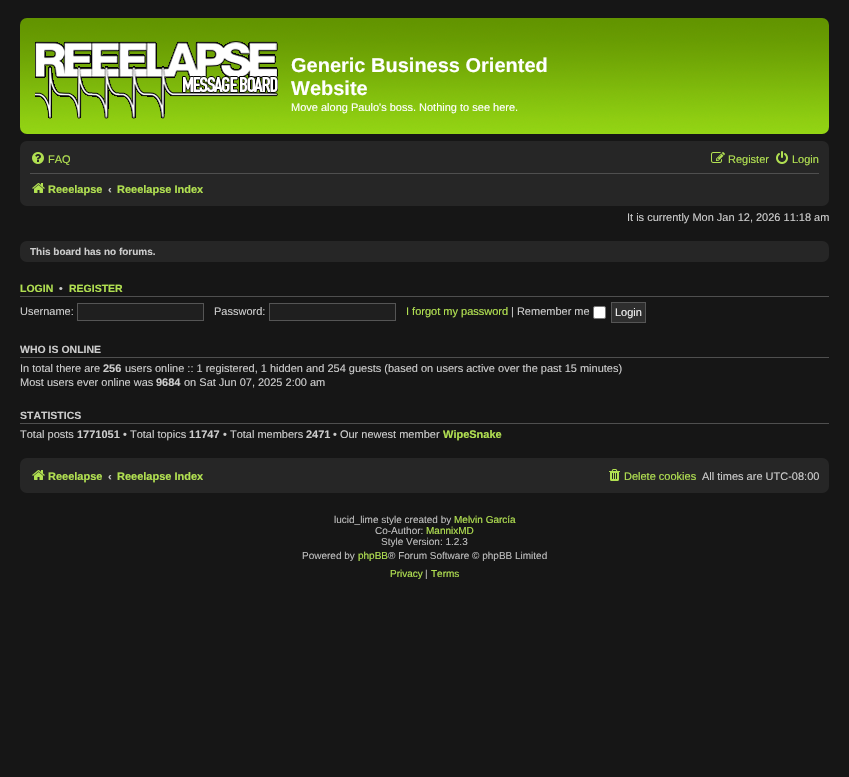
void draw(SkCanvas* canvas) {
	SkPaint fill;
	fill.setAntiAlias(true);
	auto makeFont = [&](const char* family, int weight, float size, bool italic = false) {
		SkFontStyle style(weight, SkFontStyle::kNormal_Width,
			italic ? SkFontStyle::kItalic_Slant : SkFontStyle::kUpright_Slant);
		SkFont result(fontMgr->matchFamilyStyle(family, style), size);
		result.setSubpixel(true);
		return result;
	};
	auto text = [&](const char* s, float x, float y, const SkFont& font) {
		canvas->drawString(s, x, y, font, fill);
	};
	auto box = [&](float l, float t, float r, float b) {
		canvas->drawRect(SkRect::MakeLTRB(l, t, r, b), fill);
	};
	auto roundBox = [&](float l, float t, float r, float b, float radius) {
		canvas->drawRoundRect(SkRect::MakeLTRB(l, t, r, b), radius, radius, fill);
	};
	auto picture = [&](const char* path, float l, float t, float r, float b) {
		auto image = SkImages::DeferredFromEncodedData(SkData::MakeFromFileName(path));
		canvas->drawImageRect(image, SkRect::MakeLTRB(l, t, r, b), SkSamplingOptions());
	};
	canvas->clear(0xFF161616);
	picture("image0.png", 20, 18, 829, 134);
	picture("image1.png", 35, 41, 278, 119);
	fill.setColor(0xFF262626);
	roundBox(20, 141, 829, 206, 7);
	picture("image2.png", 32, 152, 44, 164);
	picture("image3.png", 711, 152, 725, 163);
	picture("image4.png", 776, 151, 788, 164);
	fill.setColor(0xFF4F4F4F);
	box(30, 173, 819, 174);
	picture("image5.png", 32, 183, 45, 193);
	fill.setColor(0xFF262626);
	roundBox(20, 241, 829, 262, 7);
	fill.setColor(0xFF4F4F4F);
	box(20, 296, 829, 297);
	fill.setColor(0xFF1F1F1F);
	canvas->drawRect(SkRect::MakeLTRB(77.5f, 303.5f, 203.5f, 320.5f), fill);
	fill.setStyle(SkPaint::kStroke_Style);
	fill.setStrokeWidth(1);
	fill.setColor(0xFF555555);
	canvas->drawRect(SkRect::MakeLTRB(77.5f, 303.5f, 203.5f, 320.5f), fill);
	fill.setStyle(SkPaint::kFill_Style);
	fill.setColor(0xFF1F1F1F);
	canvas->drawRect(SkRect::MakeLTRB(269.5f, 303.5f, 395.5f, 320.5f), fill);
	fill.setStyle(SkPaint::kStroke_Style);
	fill.setColor(0xFF555555);
	canvas->drawRect(SkRect::MakeLTRB(269.5f, 303.5f, 395.5f, 320.5f), fill);
	fill.setStyle(SkPaint::kFill_Style);
	fill.setColor(0xFFFFFFFF);
	canvas->drawRoundRect(SkRect::MakeLTRB(593.5f, 306.5f, 605.5f, 318.5f), 1.5f, 1.5f, fill);
	fill.setStyle(SkPaint::kStroke_Style);
	fill.setColor(0xFF767676);
	canvas->drawRoundRect(SkRect::MakeLTRB(593.5f, 306.5f, 605.5f, 318.5f), 1.5f, 1.5f, fill);
	fill.setStyle(SkPaint::kFill_Style);
	fill.setColor(0xFF2E2E2E);
	canvas->drawRect(SkRect::MakeLTRB(611.5f, 302.5f, 645.5f, 322.5f), fill);
	fill.setStyle(SkPaint::kStroke_Style);
	fill.setColor(0xFF555555);
	canvas->drawRect(SkRect::MakeLTRB(611.5f, 302.5f, 645.5f, 322.5f), fill);
	fill.setStyle(SkPaint::kFill_Style);
	fill.setColor(0xFF4F4F4F);
	box(20, 357, 829, 358);
	box(20, 423, 829, 424);
	fill.setColor(0xFF262626);
	roundBox(20, 458, 829, 493, 7);
	picture("image5.png", 32, 470, 45, 480);
	picture("image6.png", 609, 469, 620, 481);
	auto font1 = makeFont("Liberation Sans", 700, 20);
	fill.setColor(0xFFFFFFFF);
	text("Generic Business Oriented", 291, 72, font1);
	text("Website", 291, 95, font1);
	auto font2 = makeFont("Liberation Sans", 400, 11);
	text("Move along Paulo's boss. Nothing to see here.", 291, 111, font2);
	fill.setColor(0xFFB1E051);
	text("FAQ", 48, 163, font2);
	text("Register", 728, 163, font2);
	text("Login", 792, 163, font2);
	auto font3 = makeFont("Liberation Sans", 700, 11);
	text("Reeelapse", 48, 193, font3);
	fill.setColor(0xFFCCCCCC);
	text("‹", 108, 193, font3);
	fill.setColor(0xFFB1E051);
	text("Reeelapse Index", 117, 193, font3);
	fill.setColor(0xFFCCCCCC);
	text("It is currently Mon Jan 12, 2026 11:18 am", 627, 221, font2);
	auto font4 = makeFont("Liberation Sans", 700, 10);
	text("This board has no forums.", 30, 255, font4);
	auto font5 = makeFont("Liberation Sans", 700, 10.5f);
	fill.setColor(0xFFB1E051);
	text("LOGIN", 20, 292, font5);
	fill.setColor(0xFFCCCCCC);
	text("•", 59, 292, font5);
	fill.setColor(0xFFB1E051);
	text("REGISTER", 69, 292, font5);
	fill.setColor(0xFFCCCCCC);
	text("Username:", 20, 315, font2);
	text("Password:", 214, 315, font2);
	fill.setColor(0xFFB1E051);
	text("I forgot my password", 406, 315, font2);
	fill.setColor(0xFFCCCCCC);
	text("| Remember me", 511, 315, font2);
	fill.setColor(0xFFF0F0F0);
	text("Login", 615, 316, font2);
	fill.setColor(0xFFCCCCCC);
	text("WHO IS ONLINE", 20, 353, font5);
	text("In total there are", 20, 372, font2);
	text("256", 103, 372, font3);
	text("users online :: 1 registered, 1 hidden and 254 guests (based on users active over the past 15 minutes)", 125, 372, font2);
	text("Most users ever online was", 20, 386, font2);
	text("9684", 156, 386, font3);
	text("on Sat Jun 07, 2025 2:00 am", 184, 386, font2);
	text("STATISTICS", 20, 419, font5);
	text("Total posts", 20, 438, font2);
	text("1771051", 77, 438, font3);
	text("• Total topics", 123, 438, font2);
	text("11747", 189, 438, font3);
	text("• Total members", 223, 438, font2);
	text("2471", 306, 438, font3);
	text("• Our newest member", 333, 438, font2);
	fill.setColor(0xFFB1E051);
	text("WipeSnake", 443, 438, font3);
	text("Reeelapse", 48, 480, font3);
	fill.setColor(0xFFCCCCCC);
	text("‹", 108, 480, font3);
	fill.setColor(0xFFB1E051);
	text("Reeelapse Index", 117, 480, font3);
	text("Delete cookies", 624, 480, font2);
	fill.setColor(0xFFCCCCCC);
	text("All times are UTC-08:00", 702, 480, font2);
	auto font6 = makeFont("Liberation Sans", 400, 10);
	fill.setColor(0xFFBFBFBF);
	text("lucid_lime style created by", 334, 523, font6);
	fill.setColor(0xFFB1E051);
	text("Melvin García", 454, 523, font6);
	fill.setColor(0xFFBFBFBF);
	text("Co-Author:", 375, 534, font6);
	fill.setColor(0xFFB1E051);
	text("MannixMD", 426, 534, font6);
	fill.setColor(0xFFBFBFBF);
	text("Style Version: 1.2.3", 381, 545, font6);
	text("Powered by", 302, 559, font6);
	fill.setColor(0xFFB1E051);
	text("phpBB", 358, 559, font6);
	fill.setColor(0xFFBFBFBF);
	text("® Forum Software © phpBB Limited", 388, 559, font6);
	fill.setColor(0xFFB1E051);
	text("Privacy", 390, 577, font6);
	fill.setColor(0xFFBFBFBF);
	text("|", 425, 577, font6);
	fill.setColor(0xFFB1E051);
	text("Terms", 431, 577, font6);
}
